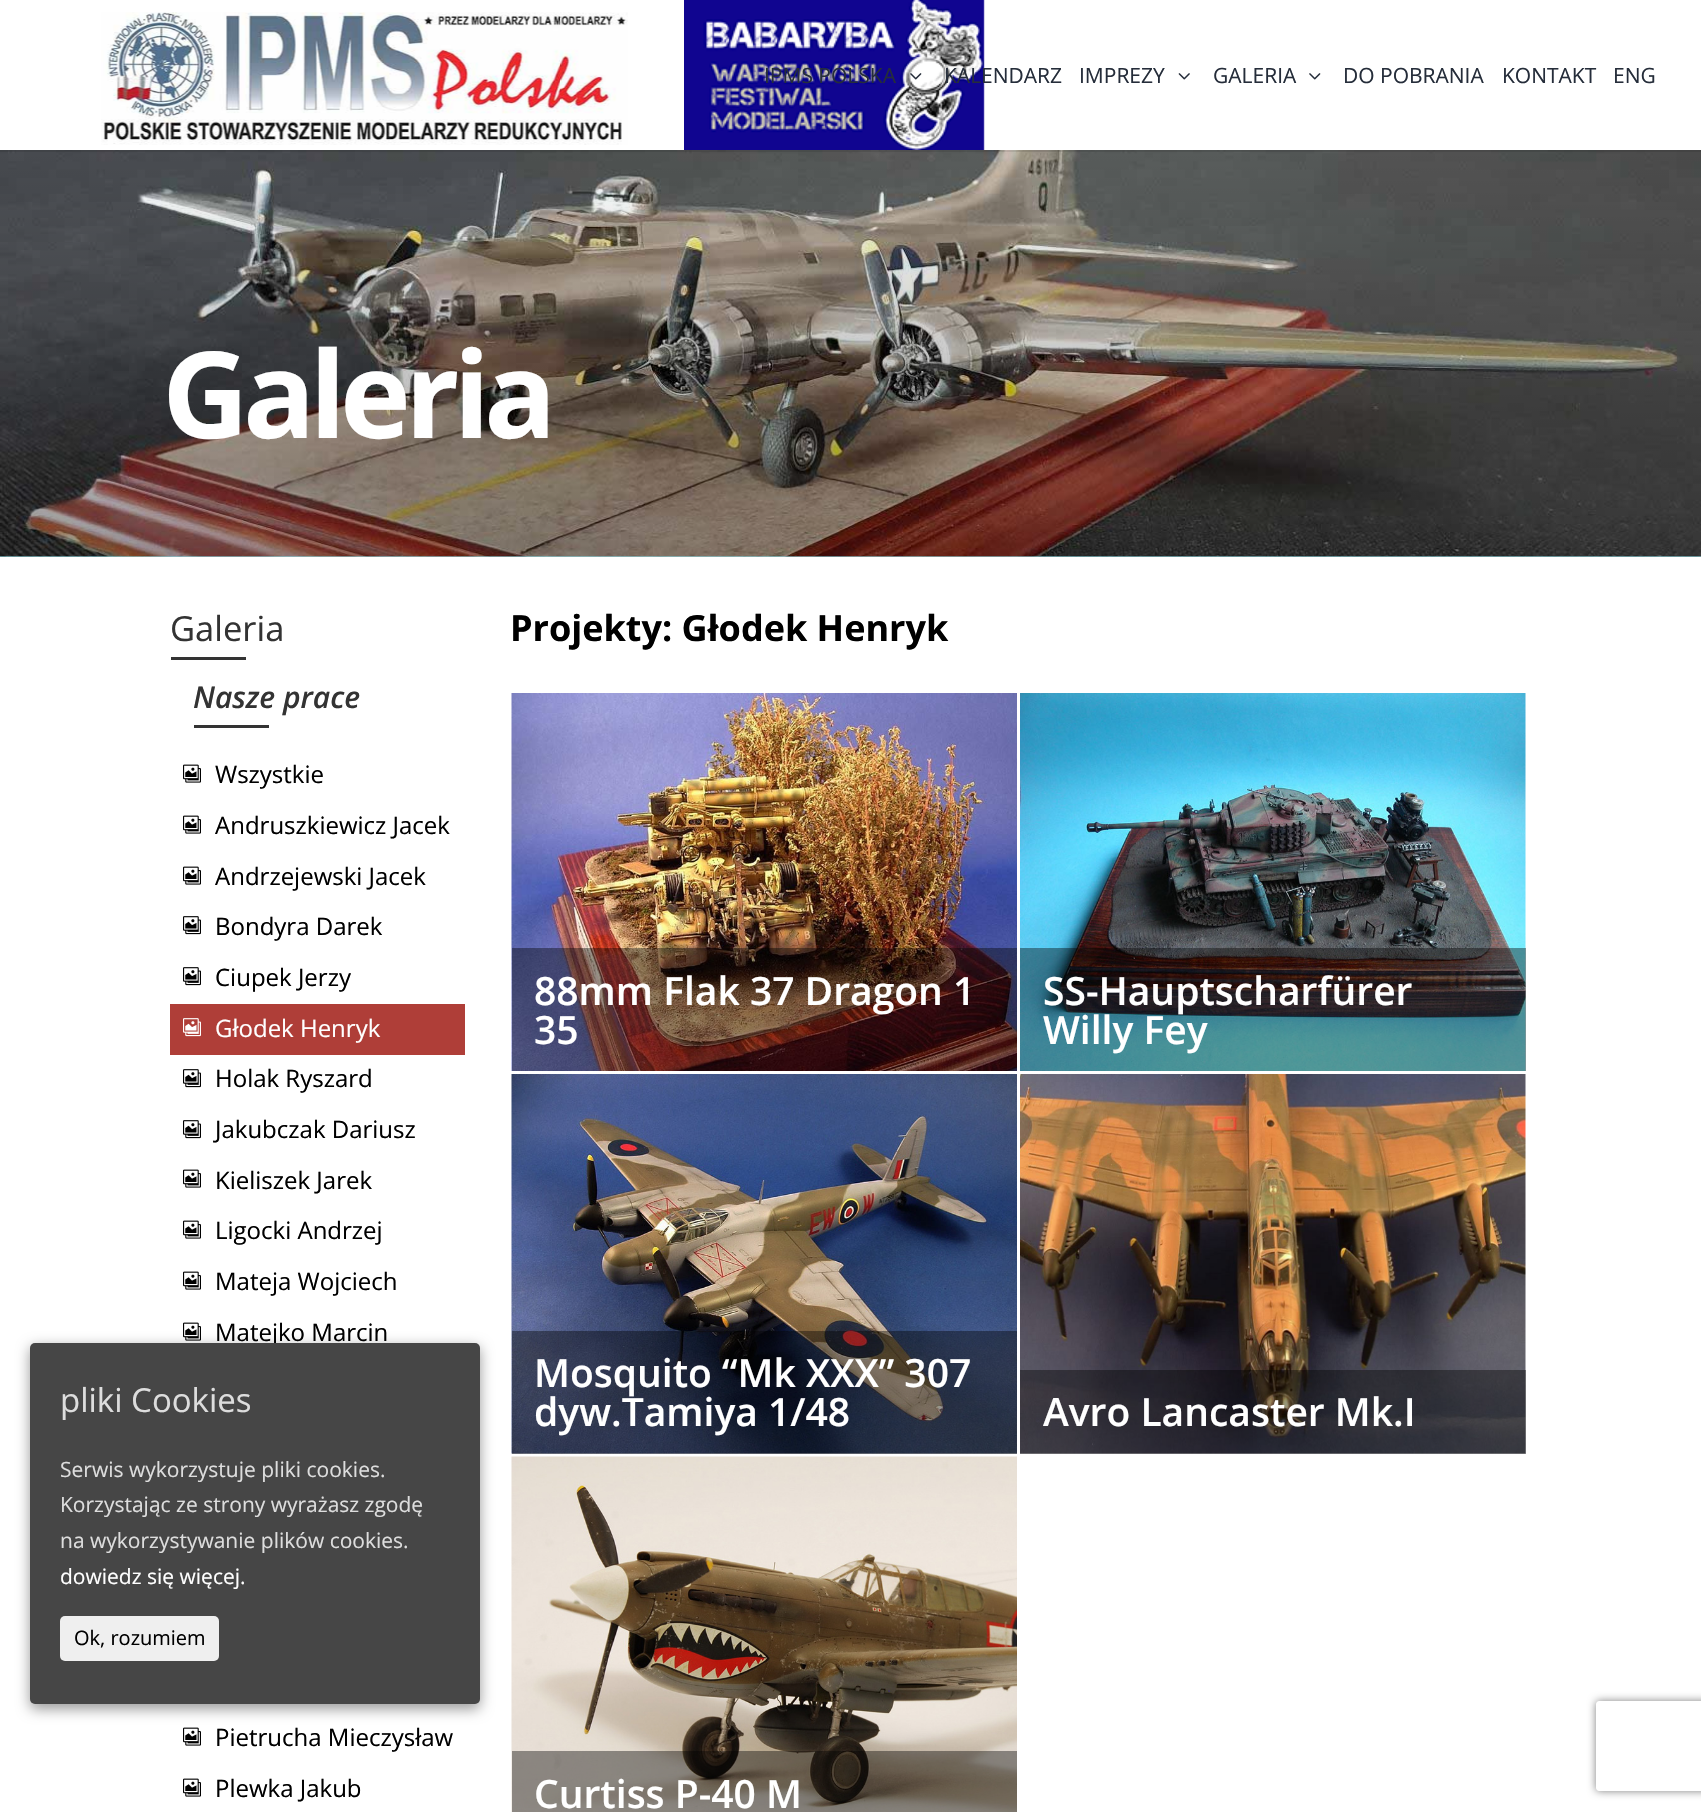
void draw(SkCanvas* canvas) {
	SkPaint fill;
	fill.setAntiAlias(true);
	auto makeFont = [&](const char* family, int weight, float size, bool italic = false) {
		SkFontStyle style(weight, SkFontStyle::kNormal_Width,
			italic ? SkFontStyle::kItalic_Slant : SkFontStyle::kUpright_Slant);
		SkFont result(fontMgr->matchFamilyStyle(family, style), size);
		result.setSubpixel(true);
		return result;
	};
	auto text = [&](const char* s, float x, float y, const SkFont& font) {
		canvas->drawString(s, x, y, font, fill);
	};
	auto spacedText = [&](const char* s, float x, float y, const SkFont& font, const SkPaint& ink, float letter, float word) {
		std::vector<SkGlyphID> glyphs(font.countText(s, strlen(s), SkTextEncoding::kUTF8));
		std::vector<float> xs(glyphs.size());
		font.textToGlyphs(s, strlen(s), SkTextEncoding::kUTF8, glyphs);
		font.getXPos(glyphs, xs, x);
		float extra = 0;
		for (size_t i = 0; i < glyphs.size(); i++) {
			xs[i] += extra;
			extra += letter + word * (glyphs[i] == font.unicharToGlyph(' '));
		}
		canvas->drawTextBlob(SkTextBlob::MakeFromPosHGlyphs(glyphs, xs, y, font), 0, 0, ink);
	};
	auto box = [&](float l, float t, float r, float b) {
		canvas->drawRect(SkRect::MakeLTRB(l, t, r, b), fill);
	};
	auto roundBox = [&](float l, float t, float r, float b, float radius) {
		canvas->drawRoundRect(SkRect::MakeLTRB(l, t, r, b), radius, radius, fill);
	};
	auto picture = [&](const char* path, float l, float t, float r, float b) {
		auto image = SkImages::DeferredFromEncodedData(SkData::MakeFromFileName(path));
		canvas->drawImageRect(image, SkRect::MakeLTRB(l, t, r, b), SkSamplingOptions());
	};
	canvas->clear(0xFFFFFFFF);
	fill.setColor(0xFF7EBEC5);
	box(0, 556, 1701, 557);
	picture("image5.png", 0, 150, 1701, 557);
	fill.setColor(0x1A000000);
	box(0, 150, 1701, 152);
	picture("image0.png", 101, 12, 628, 145);
	picture("image1.png", 684, 0, 985, 150);
	picture("image2.png", 910, 73, 922, 80);
	picture("image3.png", 1178, 73, 1190, 80);
	picture("image4.png", 1309, 73, 1321, 80);
	fill.setColor(0xFF333333);
	box(171, 657, 246, 660);
	box(194, 725, 269, 728);
	picture("image6.png", 183, 764, 201, 783);
	picture("image6.png", 183, 815, 201, 834);
	picture("image6.png", 183, 866, 201, 885);
	picture("image7.png", 183, 916, 201, 935);
	picture("image7.png", 183, 967, 201, 986);
	fill.setColor(0xFFAF3E38);
	box(170, 1004, 465, 1055);
	picture("image8.png", 183, 1018, 201, 1037);
	picture("image7.png", 183, 1069, 201, 1088);
	picture("image7.png", 183, 1120, 201, 1139);
	picture("image6.png", 183, 1169, 201, 1188);
	picture("image6.png", 183, 1220, 201, 1239);
	picture("image6.png", 183, 1271, 201, 1290);
	picture("image6.png", 183, 1322, 201, 1341);
	picture("image6.png", 183, 1727, 201, 1746);
	picture("image6.png", 183, 1778, 201, 1797);
	picture("image9.png", 511, 693, 1017, 1071);
	fill.setColor(0x66000000);
	box(512, 948, 1017, 1071);
	picture("image10.png", 1020, 693, 1526, 1071);
	box(1020, 948, 1526, 1071);
	picture("image11.png", 511, 1074, 1017, 1454);
	box(512, 1331, 1017, 1454);
	picture("image12.png", 1020, 1074, 1526, 1454);
	box(1020, 1370, 1526, 1454);
	picture("image13.png", 511, 1456, 1017, 1812);
	box(512, 1751, 1017, 1812);
	fill.setMaskFilter(SkMaskFilter::MakeBlur(kNormal_SkBlurStyle, 7));
	canvas->drawRoundRect(SkRect::MakeLTRB(30, 1347, 480, 1709), 5, 5, fill);
	fill.setMaskFilter(nullptr);
	canvas->save();
	canvas->clipPath(SkPathBuilder(SkPathFillType::kEvenOdd).moveTo(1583, 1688).lineTo(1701, 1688).lineTo(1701, 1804).lineTo(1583, 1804).close().moveTo(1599, 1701).lineTo(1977, 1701).cubicTo(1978.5f, 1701, 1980, 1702.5f, 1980, 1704).lineTo(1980, 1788).cubicTo(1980, 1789.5f, 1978.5f, 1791, 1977, 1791).lineTo(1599, 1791).cubicTo(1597.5f, 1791, 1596, 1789.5f, 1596, 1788).lineTo(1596, 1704).cubicTo(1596, 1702.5f, 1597.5f, 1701, 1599, 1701).close().detach(), true);
	fill.setColor(0xFF808080);
	fill.setMaskFilter(SkMaskFilter::MakeBlur(kNormal_SkBlurStyle, 4));
	canvas->drawRoundRect(SkRect::MakeLTRB(1596, 1701, 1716, 1791), 3, 3, fill);
	fill.setMaskFilter(nullptr);
	canvas->restore();
	auto font1 = makeFont("Open Sans", 400, 21);
	fill.setColor(0xFF252D3A);
	text("IPMS POLSKA", 764, 83, font1);
	text("KALENDARZ", 944, 83, font1);
	text("IMPREZY", 1079, 83, font1);
	text("GALERIA", 1213, 83, font1);
	text("DO POBRANIA", 1343, 83, font1);
	text("KONTAKT", 1502, 83, font1);
	text("ENG", 1613, 83, font1);
	auto font2 = makeFont("Open Sans", 700, 120);
	fill.setColor(0xFFFFFFFF);
	spacedText("Galeria", 162, 438, font2, fill, -6, 0);
	auto font3 = makeFont("Open Sans", 400, 34.5f);
	fill.setColor(0xFF333333);
	text("Galeria", 170, 641, font3);
	auto font4 = makeFont("Open Sans", 600, 30, true);
	text("Nasze prace", 193, 708, font4);
	auto font5 = makeFont("Open Sans", 400, 24);
	fill.setColor(0xFF000000);
	text("Wszystkie", 215, 783, font5);
	text("Andruszkiewicz Jacek", 215, 834, font5);
	text("Andrzejewski Jacek", 215, 885, font5);
	text("Bondyra Darek", 215, 935, font5);
	text("Ciupek Jerzy", 215, 986, font5);
	fill.setColor(0xFFFFFFFF);
	text("Głodek Henryk", 215, 1037, font5);
	fill.setColor(0xFF000000);
	text("Holak Ryszard", 215, 1087, font5);
	text("Jakubczak Dariusz", 215, 1138, font5);
	text("Kieliszek Jarek", 215, 1189, font5);
	text("Ligocki Andrzej", 215, 1239, font5);
	text("Mateja Wojciech", 215, 1290, font5);
	text("Matejko Marcin", 215, 1341, font5);
	text("Pietrucha Mieczysław", 215, 1746, font5);
	text("Plewka Jakub", 215, 1797, font5);
	auto font6 = makeFont("Open Sans", 700, 36);
	text("Projekty: Głodek Henryk", 510, 641, font6);
	auto font7 = makeFont("Open Sans", 600, 39);
	fill.setColor(0xFFFFFFFF);
	text("88mm Flak 37 Dragon 1", 534, 1005, font7);
	text("35", 534, 1044, font7);
	text("SS-Hauptscharfürer", 1043, 1005, font7);
	text("Willy Fey", 1043, 1044, font7);
	text("Mosquito “Mk XXX” 307", 534, 1387, font7);
	text("dyw.Tamiya 1/48", 534, 1426, font7);
	text("Avro Lancaster Mk.I", 1043, 1426, font7);
	text("Curtiss P-40 M", 534, 1808, font7);
	fill.setColor(0xFF464646);
	roundBox(30, 1343, 480, 1704, 5);
	auto font8 = makeFont("Open Sans", 400, 33);
	fill.setColor(0xFFDDDDDD);
	text("pliki Cookies", 60, 1412, font8);
	text("Serwis wykorzystuje pliki cookies.", 60, 1477, font1);
	text("Korzystając ze strony wyrażasz zgodę", 60, 1512, font1);
	text("na wykorzystywanie plików cookies.", 60, 1548, font1);
	fill.setColor(0xFFFFFFFF);
	text("dowiedz się więcej.", 60, 1584, font1);
	fill.setColor(0xFFEFEFEF);
	roundBox(60, 1616, 219, 1661, 5);
	auto font9 = makeFont("Open Sans", 400, 20);
	fill.setColor(0xFF000000);
	text("Ok, rozumiem", 74, 1645, font9);
}
